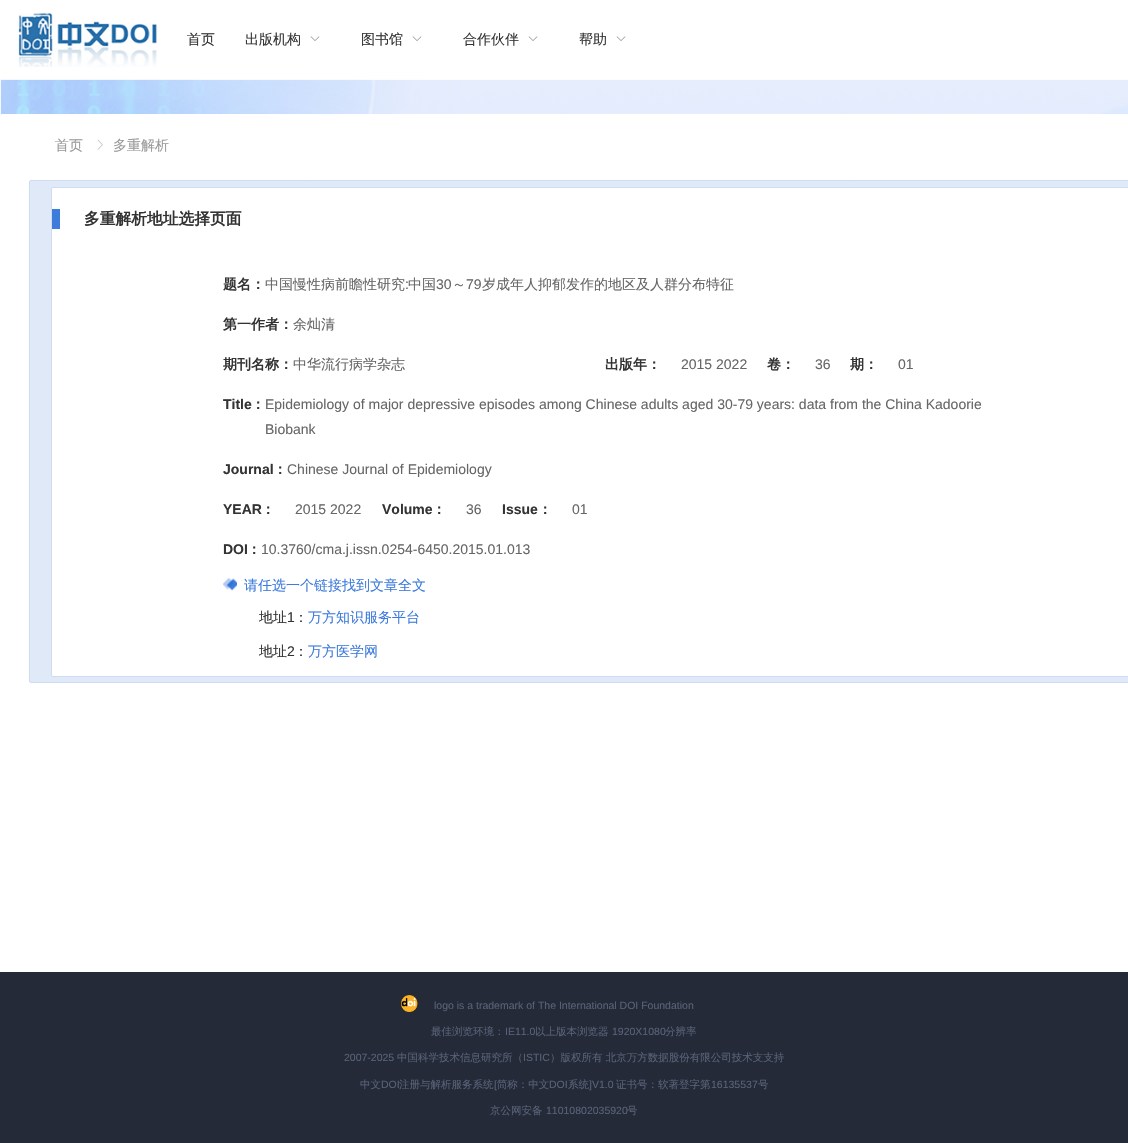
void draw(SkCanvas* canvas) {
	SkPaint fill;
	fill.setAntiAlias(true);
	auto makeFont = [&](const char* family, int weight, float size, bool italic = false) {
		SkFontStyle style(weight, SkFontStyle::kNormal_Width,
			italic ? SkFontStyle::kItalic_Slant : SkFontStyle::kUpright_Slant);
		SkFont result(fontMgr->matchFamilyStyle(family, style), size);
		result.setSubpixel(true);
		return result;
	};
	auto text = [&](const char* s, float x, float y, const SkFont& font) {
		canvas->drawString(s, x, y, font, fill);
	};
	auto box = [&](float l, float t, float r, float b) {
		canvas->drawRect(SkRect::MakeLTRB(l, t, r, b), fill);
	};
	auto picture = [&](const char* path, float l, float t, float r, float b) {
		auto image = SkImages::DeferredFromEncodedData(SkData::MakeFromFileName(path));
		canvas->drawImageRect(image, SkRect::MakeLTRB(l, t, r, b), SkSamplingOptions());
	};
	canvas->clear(0xFFFFFFFF);
	picture("image0.png", 18, 12, 158, 67);
	picture("image1.png", 310, 36, 320, 41);
	picture("image1.png", 412, 36, 422, 41);
	picture("image1.png", 528, 36, 538, 41);
	picture("image1.png", 616, 36, 626, 41);
	picture("image2.png", 0, 79, 1128, 116);
	fill.setColor(0xFFFFFFFF);
	canvas->drawRoundRect(SkRect::MakeLTRB(0.5f, 114.5f, 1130.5f, 707.5f), 1.5f, 1.5f, fill);
	fill.setStyle(SkPaint::kStroke_Style);
	fill.setStrokeWidth(1);
	canvas->drawRoundRect(SkRect::MakeLTRB(0.5f, 114.5f, 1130.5f, 707.5f), 1.5f, 1.5f, fill);
	picture("image3.png", 97, 139, 103, 150);
	fill.setStyle(SkPaint::kFill_Style);
	fill.setColor(0xFFDFE9F8);
	canvas->drawRoundRect(SkRect::MakeLTRB(29.5f, 180.5f, 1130.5f, 682.5f), 1.5f, 1.5f, fill);
	fill.setStyle(SkPaint::kStroke_Style);
	fill.setColor(0xFFCEDCF1);
	canvas->drawRoundRect(SkRect::MakeLTRB(29.5f, 180.5f, 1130.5f, 682.5f), 1.5f, 1.5f, fill);
	fill.setStyle(SkPaint::kFill_Style);
	fill.setColor(0xFFFFFFFF);
	canvas->drawRoundRect(SkRect::MakeLTRB(51.5f, 187.5f, 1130.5f, 676.5f), 1.5f, 1.5f, fill);
	fill.setStyle(SkPaint::kStroke_Style);
	fill.setColor(0xFFCEDCF1);
	canvas->drawRoundRect(SkRect::MakeLTRB(51.5f, 187.5f, 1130.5f, 676.5f), 1.5f, 1.5f, fill);
	fill.setStyle(SkPaint::kFill_Style);
	fill.setColor(0xFF3D7BDC);
	box(52, 209, 60, 229);
	picture("image4.png", 223, 578, 237, 591);
	fill.setColor(0xFF242A37);
	box(0, 972, 1128, 1143);
	picture("image5.png", 401, 995, 418, 1012);
	auto font1 = makeFont("WenQuanYi Zen Hei", 500, 14);
	fill.setColor(0xFF333333);
	text("首页", 187, 44, font1);
	text("出版机构", 245, 44, font1);
	text("图书馆", 361, 44, font1);
	text("合作伙伴", 463, 44, font1);
	text("帮助", 579, 44, font1);
	fill.setColor(0xFF999999);
	text("首页", 55, 150, font1);
	text("多重解析", 113, 150, font1);
	auto font2 = makeFont("WenQuanYi Zen Hei", 700, 15.75f);
	fill.setColor(0xFF333333);
	text("多重解析地址选择页面", 84, 224, font2);
	auto font3 = makeFont("WenQuanYi Zen Hei", 700, 14);
	text("题名：", 223, 289, font3);
	fill.setColor(0xFF666666);
	text("中国慢性病前瞻性研究", 265, 289, font1);
	auto font4 = makeFont("Liberation Sans", 400, 14);
	text(":", 405, 289, font4);
	text("中国", 408, 289, font1);
	text("30", 436, 289, font4);
	text("～", 452, 289, font1);
	text("79", 466, 289, font4);
	text("岁成年人抑郁发作的地区及人群分布特征", 482, 289, font1);
	fill.setColor(0xFF333333);
	text("第一作者：", 223, 329, font3);
	fill.setColor(0xFF666666);
	text("余灿清", 293, 329, font1);
	fill.setColor(0xFF333333);
	text("期刊名称：", 223, 369, font3);
	fill.setColor(0xFF666666);
	text("中华流行病学杂志", 293, 369, font1);
	fill.setColor(0xFF333333);
	text("出版年：", 605, 369, font3);
	fill.setColor(0xFF666666);
	text("2015 2022", 681, 369, font4);
	fill.setColor(0xFF333333);
	text("卷：", 767, 369, font3);
	fill.setColor(0xFF666666);
	text("36", 815, 369, font4);
	fill.setColor(0xFF333333);
	text("期：", 850, 369, font3);
	fill.setColor(0xFF666666);
	text("01", 898, 369, font4);
	auto font5 = makeFont("Liberation Sans", 700, 14);
	fill.setColor(0xFF333333);
	text("Title", 223, 409, font5);
	text("：", 251, 409, font3);
	fill.setColor(0xFF666666);
	text("Epidemiology of major depressive episodes among Chinese adults aged 30-79 years: data from the China Kadoorie", 265, 409, font4);
	text("Biobank", 265, 434, font4);
	fill.setColor(0xFF333333);
	text("Journal", 223, 474, font5);
	text("：", 273, 474, font3);
	fill.setColor(0xFF666666);
	text("Chinese Journal of Epidemiology", 287, 474, font4);
	fill.setColor(0xFF333333);
	text("YEAR", 223, 514, font5);
	text("：", 261, 514, font3);
	fill.setColor(0xFF666666);
	text("2015 2022", 295, 514, font4);
	fill.setColor(0xFF333333);
	text("Volume", 382, 514, font5);
	text("：", 432, 514, font3);
	fill.setColor(0xFF666666);
	text("36", 466, 514, font4);
	fill.setColor(0xFF333333);
	text("Issue", 502, 514, font5);
	text("：", 538, 514, font3);
	fill.setColor(0xFF666666);
	text("01", 572, 514, font4);
	fill.setColor(0xFF333333);
	text("DOI", 223, 554, font5);
	text("：", 247, 554, font3);
	fill.setColor(0xFF666666);
	text("10.3760/cma.j.issn.0254-6450.2015.01.013", 261, 554, font4);
	fill.setColor(0xFF3D7BDC);
	text("请任选一个链接找到文章全文", 244, 590, font1);
	fill.setColor(0xFF333333);
	text("地址", 259, 622, font1);
	text("1", 287, 622, font4);
	text("：", 294, 622, font1);
	fill.setColor(0xFF3D7BDC);
	text("万方知识服务平台", 308, 622, font1);
	fill.setColor(0xFF333333);
	text("地址", 259, 656, font1);
	text("2", 287, 656, font4);
	text("：", 294, 656, font1);
	fill.setColor(0xFF3D7BDC);
	text("万方医学网", 308, 656, font1);
	auto font6 = makeFont("Liberation Sans", 400, 10.5f);
	fill.setColor(0xFF586278);
	text("logo is a trademark of The International DOI Foundation", 434, 1009, font6);
	auto font7 = makeFont("WenQuanYi Zen Hei", 500, 10.5f);
	text("最佳浏览环境：", 431, 1035, font7);
	text("IE11.0", 505, 1035, font6);
	text("以上版本浏览器", 535, 1035, font7);
	text("1920X1080", 612, 1035, font6);
	text("分辨率", 665, 1035, font7);
	text("2007-2025", 344, 1061, font6);
	text("中国科学技术信息研究所（", 397, 1061, font7);
	text("ISTIC", 523, 1061, font6);
	text("）版权所有 北京万方数据股份有限公司技术支支持", 550, 1061, font7);
	text("中文", 360, 1088, font7);
	text("DOI", 381, 1088, font6);
	text("注册与解析服务系统 简称：中文", 399, 1088, font7);
	text("系统", 568, 1088, font7);
	text("证书号：软著登字第", 616, 1088, font7);
	text("[", 494, 1088, font6);
	text("DOI", 549, 1088, font6);
	text("]V1.0", 589, 1088, font6);
	text("16135537", 711, 1088, font6);
	text("号", 758, 1088, font7);
	text("京公网安备", 490, 1114, font7);
	text("11010802035920", 546, 1114, font6);
	text("号", 627, 1114, font7);
}
